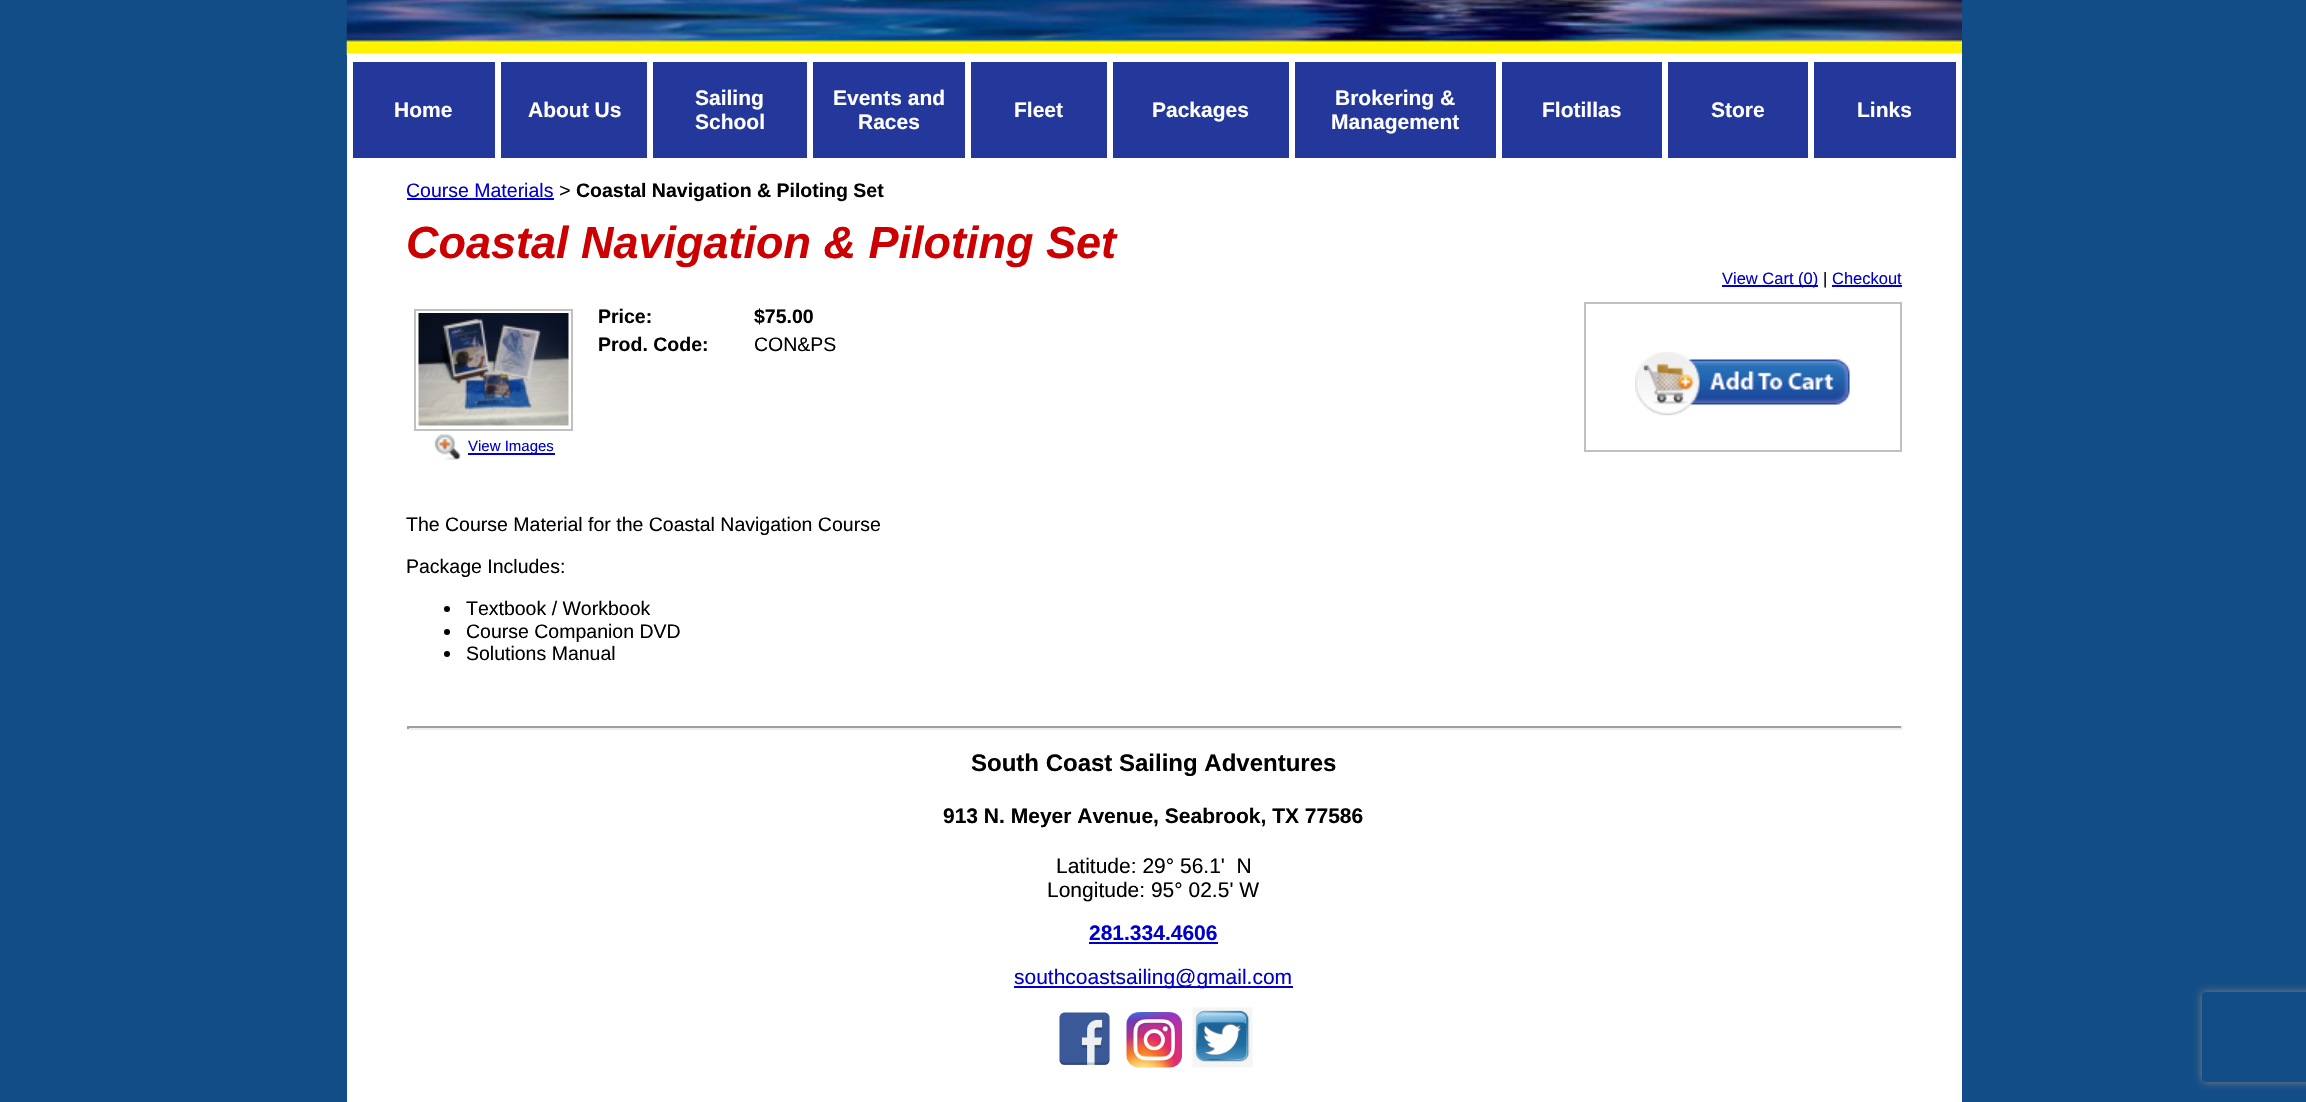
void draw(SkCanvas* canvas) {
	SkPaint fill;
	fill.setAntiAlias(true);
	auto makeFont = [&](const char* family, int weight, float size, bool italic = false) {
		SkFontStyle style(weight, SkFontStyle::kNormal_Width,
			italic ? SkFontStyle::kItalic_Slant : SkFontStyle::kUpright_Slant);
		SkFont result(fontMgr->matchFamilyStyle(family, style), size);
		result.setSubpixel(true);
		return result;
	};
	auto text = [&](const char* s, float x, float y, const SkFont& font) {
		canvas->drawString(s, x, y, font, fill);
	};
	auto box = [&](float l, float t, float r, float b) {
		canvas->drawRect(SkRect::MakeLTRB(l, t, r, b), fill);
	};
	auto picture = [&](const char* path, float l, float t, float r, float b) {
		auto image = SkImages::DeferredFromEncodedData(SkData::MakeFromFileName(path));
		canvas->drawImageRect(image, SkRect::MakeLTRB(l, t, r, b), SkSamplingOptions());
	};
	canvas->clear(0xFF134D87);
	fill.setColor(0xFFFFFFFF);
	box(347, 55, 1962, 1102);
	picture("image0.png", 346, 0, 1962, 55);
	fill.setColor(0xFF24389B);
	box(353, 62, 495, 158);
	box(501, 62, 647, 158);
	box(653, 62, 807, 158);
	box(813, 62, 965, 158);
	box(971, 62, 1107, 158);
	box(1113, 62, 1289, 158);
	box(1295, 62, 1496, 158);
	box(1502, 62, 1662, 158);
	box(1668, 62, 1808, 158);
	box(1814, 62, 1956, 158);
	fill.setColor(0xFF0000CC);
	box(407, 198, 554, 200);
	box(1722, 285, 1818, 287);
	box(1832, 285, 1902, 287);
	fill.setStyle(SkPaint::kStroke_Style);
	fill.setStrokeWidth(2);
	fill.setColor(0xFFC0C0C0);
	canvas->drawRect(SkRect::MakeLTRB(415, 310, 572, 430), fill);
	picture("image1.png", 418, 313, 569, 426);
	picture("image2.png", 434, 434, 461, 460);
	fill.setStyle(SkPaint::kFill_Style);
	fill.setColor(0xFF0000CC);
	box(468, 453, 555, 455);
	fill.setStyle(SkPaint::kStroke_Style);
	fill.setColor(0xFFC0C0C0);
	canvas->drawRect(SkRect::MakeLTRB(1585, 303, 1901, 451), fill);
	picture("image3.png", 1635, 352, 1850, 416);
	fill.setStyle(SkPaint::kFill_Style);
	fill.setColor(0xFF000000);
	canvas->drawCircle(447, 609, 3, fill);
	canvas->drawCircle(447, 632, 3, fill);
	canvas->drawCircle(447, 654, 3, fill);
	fill.setColor(0xFF9F9F9F);
	box(407, 726, 1902, 728);
	fill.setColor(0xFFEEEEEE);
	box(1901, 726, 1903, 729);
	box(407, 728, 1902, 730);
	fill.setColor(0xFF9F9F9F);
	box(407, 726, 409, 729);
	fill.setColor(0xFF0000CC);
	box(1089, 942, 1218, 944);
	box(1014, 986, 1293, 988);
	picture("image4.png", 1059, 1012, 1110, 1065);
	picture("image5.png", 1126, 1012, 1182, 1068);
	picture("image6.png", 1192, 1007, 1253, 1068);
	canvas->save();
	canvas->clipPath(SkPathBuilder(SkPathFillType::kEvenOdd).moveTo(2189, 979).lineTo(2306, 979).lineTo(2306, 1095).lineTo(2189, 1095).close().moveTo(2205, 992).lineTo(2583, 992).cubicTo(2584.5f, 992, 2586, 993.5f, 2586, 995).lineTo(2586, 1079).cubicTo(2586, 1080.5f, 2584.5f, 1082, 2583, 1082).lineTo(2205, 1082).cubicTo(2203.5f, 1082, 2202, 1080.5f, 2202, 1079).lineTo(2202, 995).cubicTo(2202, 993.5f, 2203.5f, 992, 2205, 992).close().detach(), true);
	fill.setColor(0xFF808080);
	fill.setMaskFilter(SkMaskFilter::MakeBlur(kNormal_SkBlurStyle, 4));
	canvas->drawRoundRect(SkRect::MakeLTRB(2202, 992, 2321, 1082), 3, 3, fill);
	fill.setMaskFilter(nullptr);
	canvas->restore();
	auto font1 = makeFont("Liberation Sans", 700, 21);
	fill.setColor(0xFFFFFFFF);
	text("Home", 394, 117, font1);
	text("About Us", 528, 117, font1);
	text("Sailing", 695, 105, font1);
	text("School", 695, 129, font1);
	text("Events and", 833, 105, font1);
	text("Races", 858, 129, font1);
	text("Fleet", 1014, 117, font1);
	text("Packages", 1152, 117, font1);
	text("Brokering &", 1335, 105, font1);
	text("Management", 1331, 129, font1);
	text("Flotillas", 1542, 117, font1);
	text("Store", 1711, 117, font1);
	text("Links", 1857, 117, font1);
	auto font2 = makeFont("Liberation Sans", 400, 19.5f);
	fill.setColor(0xFF0000CC);
	text("Course Materials", 406, 197, font2);
	auto font3 = makeFont("Liberation Mono", 400, 19.5f);
	fill.setColor(0xFF000000);
	text(">", 559, 197, font3);
	auto font4 = makeFont("Liberation Sans", 700, 19.5f);
	text("Coastal Navigation & Piloting Set", 576, 197, font4);
	auto font5 = makeFont("Liberation Sans", 700, 45, true);
	fill.setColor(0xFFCC0000);
	text("Coastal Navigation & Piloting Set", 406, 258, font5);
	auto font6 = makeFont("Liberation Sans", 400, 16.5f);
	fill.setColor(0xFF0000CC);
	text("View Cart (0)", 1722, 284, font6);
	fill.setColor(0xFF000000);
	text("|", 1823, 284, font6);
	fill.setColor(0xFF0000CC);
	text("Checkout", 1832, 284, font6);
	fill.setColor(0xFF000000);
	text("Price:", 598, 323, font4);
	text("$75.00", 754, 323, font4);
	text("Prod. Code:", 598, 351, font4);
	text("CON&PS", 754, 351, font2);
	auto font7 = makeFont("Liberation Sans", 400, 15);
	fill.setColor(0xFF0000CC);
	text("View Images", 468, 451, font7);
	fill.setColor(0xFF000000);
	text("The Course Material for the Coastal Navigation Course", 406, 531, font2);
	text("Package Includes:", 406, 573, font2);
	text("Textbook / Workbook", 466, 615, font2);
	text("Course Companion DVD", 466, 638, font2);
	text("Solutions Manual", 466, 660, font2);
	auto font8 = makeFont("Liberation Sans", 700, 24);
	text("South Coast Sailing Adventures", 971, 771, font8);
	text("913 N. Meyer Avenue, Seabrook, TX 77586", 943, 823, font1);
	auto font9 = makeFont("Liberation Sans", 400, 21);
	text("Latitude: 29° 56.1'  N", 1056, 873, font9);
	text("Longitude: 95° 02.5' W", 1047, 897, font9);
	fill.setColor(0xFF0000CC);
	text("281.334.4606", 1089, 940, font1);
	text("southcoastsailing@gmail.com", 1014, 984, font9);
}
